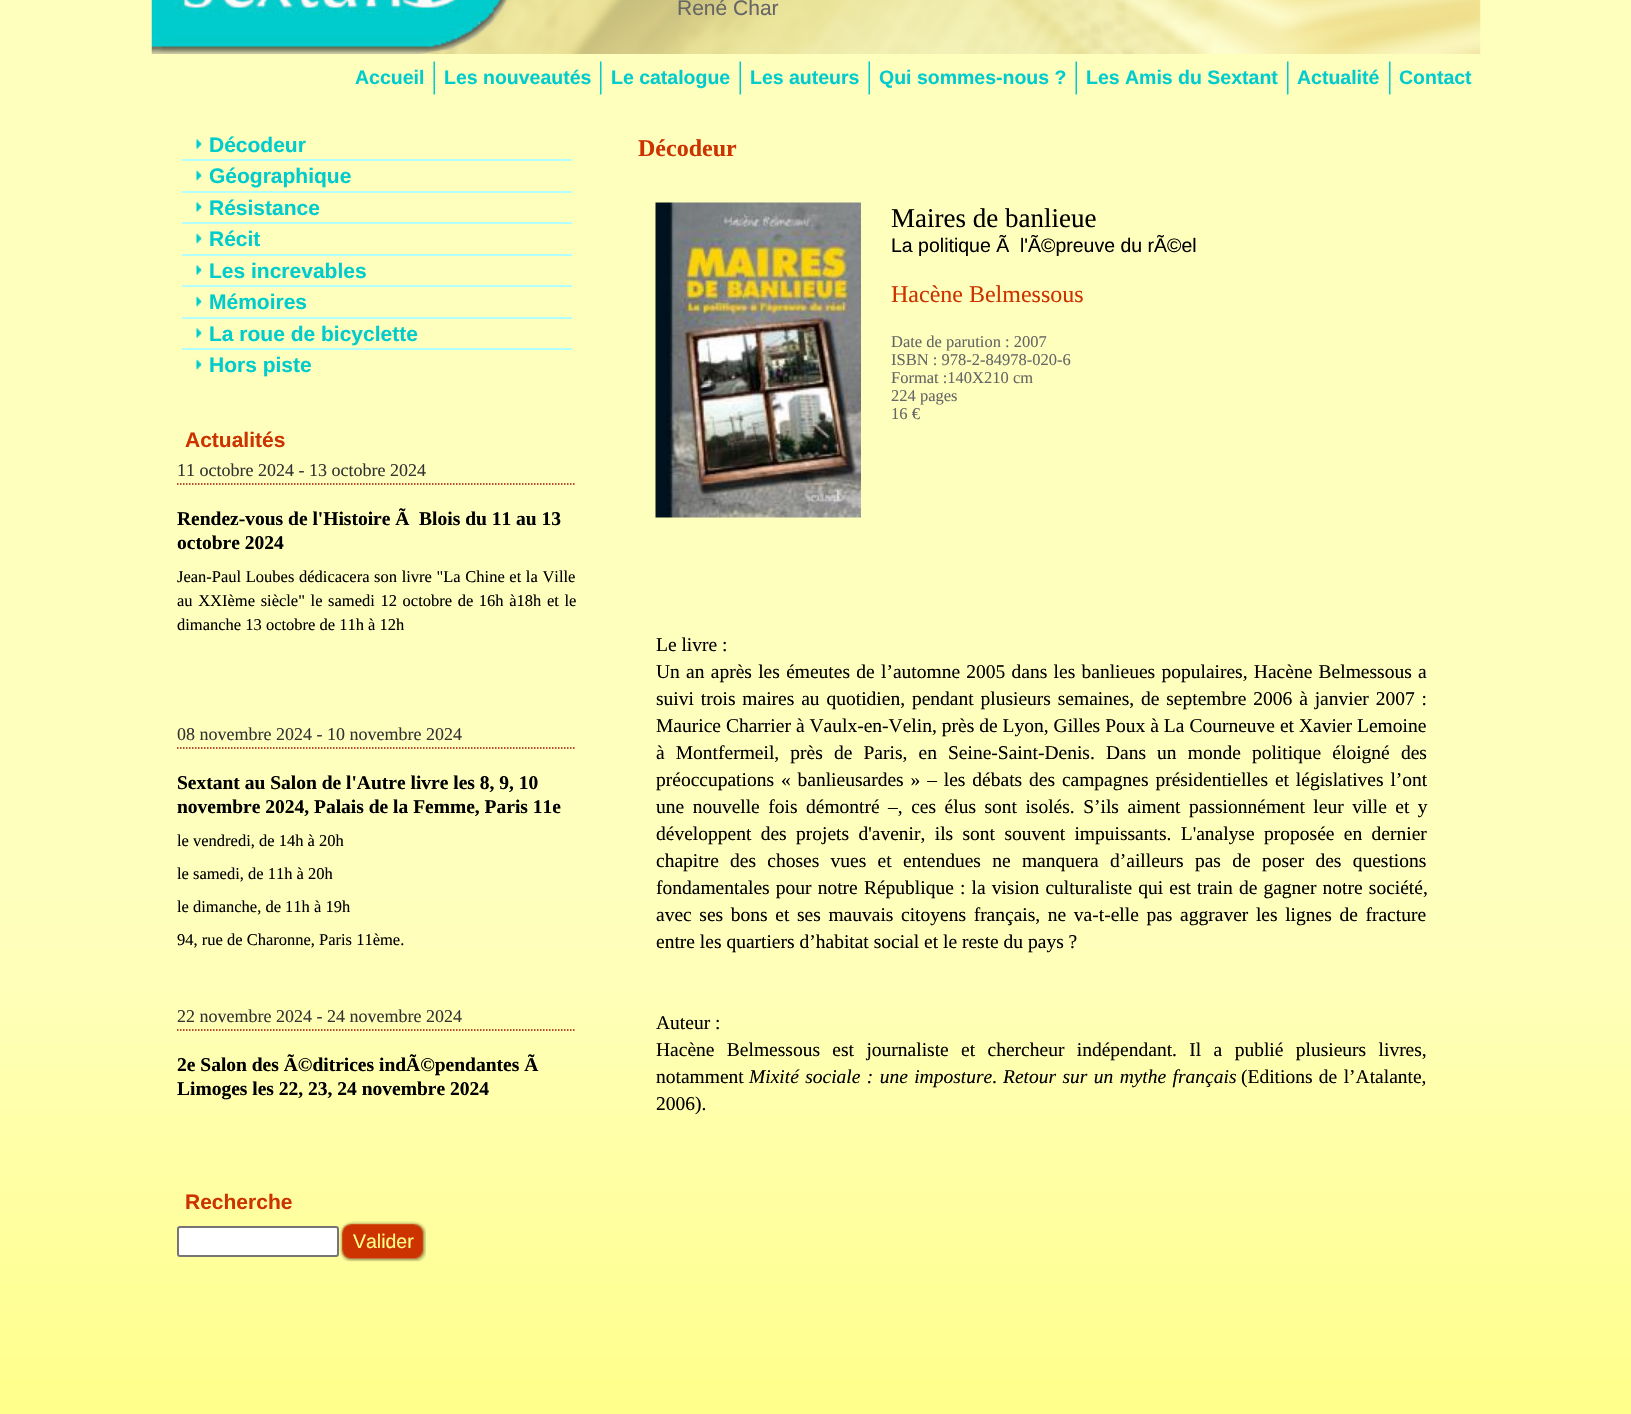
void draw(SkCanvas* canvas) {
	SkPaint fill;
	fill.setAntiAlias(true);
	auto makeFont = [&](const char* family, int weight, float size, bool italic = false) {
		SkFontStyle style(weight, SkFontStyle::kNormal_Width,
			italic ? SkFontStyle::kItalic_Slant : SkFontStyle::kUpright_Slant);
		SkFont result(fontMgr->matchFamilyStyle(family, style), size);
		result.setSubpixel(true);
		return result;
	};
	auto text = [&](const char* s, float x, float y, const SkFont& font) {
		canvas->drawString(s, x, y, font, fill);
	};
	auto spacedText = [&](const char* s, float x, float y, const SkFont& font, const SkPaint& ink, float letter, float word) {
		std::vector<SkGlyphID> glyphs(font.countText(s, strlen(s), SkTextEncoding::kUTF8));
		std::vector<float> xs(glyphs.size());
		font.textToGlyphs(s, strlen(s), SkTextEncoding::kUTF8, glyphs);
		font.getXPos(glyphs, xs, x);
		float extra = 0;
		for (size_t i = 0; i < glyphs.size(); i++) {
			xs[i] += extra;
			extra += letter + word * (glyphs[i] == font.unicharToGlyph(' '));
		}
		canvas->drawTextBlob(SkTextBlob::MakeFromPosHGlyphs(glyphs, xs, y, font), 0, 0, ink);
	};
	auto box = [&](float l, float t, float r, float b) {
		canvas->drawRect(SkRect::MakeLTRB(l, t, r, b), fill);
	};
	auto picture = [&](const char* path, float l, float t, float r, float b) {
		auto image = SkImages::DeferredFromEncodedData(SkData::MakeFromFileName(path));
		canvas->drawImageRect(image, SkRect::MakeLTRB(l, t, r, b), SkSamplingOptions());
	};
	canvas->clear(0xFFFFFFFF);
	picture("image0.png", 0, 0, 1631, 1414);
	picture("image1.png", 151, 0, 1481, 54);
	picture("image2.png", 433, 61, 435, 95);
	picture("image3.png", 600, 61, 602, 95);
	picture("image2.png", 739, 61, 741, 95);
	picture("image2.png", 868, 61, 870, 95);
	picture("image2.png", 1075, 61, 1077, 95);
	picture("image3.png", 1287, 61, 1289, 95);
	picture("image3.png", 1389, 61, 1391, 95);
	picture("image4.png", 196, 139, 202, 149);
	fill.setColor(0xFFB3FFFF);
	box(182, 159, 572, 161);
	picture("image5.png", 196, 170, 202, 181);
	box(182, 191, 572, 193);
	picture("image4.png", 196, 202, 202, 212);
	box(182, 222, 572, 224);
	picture("image5.png", 196, 233, 202, 244);
	box(182, 254, 572, 256);
	picture("image4.png", 196, 265, 202, 275);
	box(182, 285, 572, 287);
	picture("image5.png", 196, 296, 202, 307);
	box(182, 317, 572, 319);
	picture("image4.png", 196, 328, 202, 338);
	box(182, 348, 572, 350);
	picture("image5.png", 196, 359, 202, 370);
	fill.setStyle(SkPaint::kStroke_Style);
	fill.setStrokeWidth(1.5f);
	fill.setColor(0xFF9F1201);
	fill.setPathEffect(SkDashPathEffect::Make({{1.5f, 1.5f}}, 0));
	canvas->drawPath(SkPathBuilder().moveTo(177, 484).lineTo(576, 484).detach(), fill);
	fill.setPathEffect(nullptr);
	fill.setPathEffect(SkDashPathEffect::Make({{1.5f, 1.5f}}, 0));
	canvas->drawPath(SkPathBuilder().moveTo(177, 748).lineTo(576, 748).detach(), fill);
	fill.setPathEffect(nullptr);
	fill.setPathEffect(SkDashPathEffect::Make({{1.5f, 1.5f}}, 0));
	canvas->drawPath(SkPathBuilder().moveTo(177, 1030).lineTo(576, 1030).detach(), fill);
	fill.setPathEffect(nullptr);
	fill.setStyle(SkPaint::kFill_Style);
	fill.setColor(0xFFFFFFFF);
	canvas->drawRoundRect(SkRect::MakeLTRB(178, 1227, 338, 1256), 2, 2, fill);
	fill.setStyle(SkPaint::kStroke_Style);
	fill.setStrokeWidth(2);
	fill.setColor(0xFF767676);
	canvas->drawRoundRect(SkRect::MakeLTRB(178, 1227, 338, 1256), 2, 2, fill);
	picture("image6.png", 339, 1221, 411, 1262);
	picture("image7.png", 411, 1221, 426, 1262);
	picture("image8.png", 655, 202, 861, 518);
	auto font1 = makeFont("Liberation Sans", 400, 21);
	fill.setStyle(SkPaint::kFill_Style);
	fill.setColor(0xFF666666);
	text("René Char", 677, 15, font1);
	auto font2 = makeFont("Liberation Sans", 700, 19.5f);
	fill.setColor(0xFF00CCCD);
	text("Accueil", 355, 84, font2);
	text("Les nouveautés", 444, 84, font2);
	text("Le catalogue", 611, 84, font2);
	text("Les auteurs", 750, 84, font2);
	text("Qui sommes-nous ?", 879, 84, font2);
	text("Les Amis du Sextant", 1086, 84, font2);
	text("Actualité", 1297, 84, font2);
	text("Contact", 1399, 84, font2);
	auto font3 = makeFont("Liberation Sans", 700, 21);
	text("Décodeur", 209, 152, font3);
	text("Géographique", 209, 183, font3);
	text("Résistance", 209, 215, font3);
	text("Récit", 209, 246, font3);
	text("Les increvables", 209, 278, font3);
	text("Mémoires", 209, 309, font3);
	text("La roue de bicyclette", 209, 341, font3);
	text("Hors piste", 209, 372, font3);
	fill.setColor(0xFFCC3300);
	text("Actualités", 185, 447, font3);
	auto font4 = makeFont("Liberation Serif", 400, 18);
	fill.setColor(0xFF333333);
	text("11 octobre 2024 - 13 octobre 2024", 177, 476, font4);
	auto font5 = makeFont("Liberation Serif", 700, 19.5f);
	fill.setColor(0xFF000000);
	text("Rendez-vous de l'Histoire Ã  Blois du 11 au 13", 177, 525, font5);
	text("octobre 2024", 177, 549, font5);
	auto font6 = makeFont("Liberation Serif", 400, 16.5f);
	spacedText("Jean-Paul Loubes dédicacera son livre \"La Chine et la Ville", 177, 582, font6, fill, 0, 0.5f);
	spacedText("au XXIème siècle\" le samedi 12 octobre de 16h à18h et le", 177, 606, font6, fill, 0, 1.5f);
	text("dimanche 13 octobre de 11h à 12h", 177, 630, font6);
	fill.setColor(0xFF333333);
	text("08 novembre 2024 - 10 novembre 2024", 177, 740, font4);
	fill.setColor(0xFF000000);
	text("Sextant au Salon de l'Autre livre les 8, 9, 10", 177, 789, font5);
	text("novembre 2024, Palais de la Femme, Paris 11e", 177, 813, font5);
	text("le vendredi, de 14h à 20h", 177, 846, font6);
	text("le samedi, de 11h à 20h", 177, 879, font6);
	text("le dimanche, de 11h à 19h", 177, 912, font6);
	text("94, rue de Charonne, Paris 11ème.", 177, 945, font6);
	fill.setColor(0xFF333333);
	text("22 novembre 2024 - 24 novembre 2024", 177, 1022, font4);
	fill.setColor(0xFF000000);
	text("2e Salon des Ã©ditrices indÃ©pendantes Ã", 177, 1071, font5);
	text("Limoges les 22, 23, 24 novembre 2024", 177, 1095, font5);
	fill.setColor(0xFFCC3300);
	text("Recherche", 185, 1209, font3);
	auto font7 = makeFont("Liberation Sans", 400, 19.5f);
	fill.setColor(0xFFFFFF85);
	text("Valider", 353, 1248, font7);
	auto font8 = makeFont("Liberation Serif", 700, 24);
	fill.setColor(0xFFCC3300);
	text("Décodeur", 638, 156, font8);
	auto font9 = makeFont("Liberation Serif", 400, 27);
	fill.setColor(0xFF000000);
	text("Maires de banlieue", 891, 227, font9);
	text("La politique Ã  l'Ã©preuve du rÃ©el", 891, 252, font7);
	auto font10 = makeFont("Liberation Serif", 400, 24);
	fill.setColor(0xFFCC3300);
	text("Hacène Belmessous", 891, 302, font10);
	fill.setColor(0xFF666666);
	text("Date de parution : 2007", 891, 347, font6);
	text("ISBN : 978-2-84978-020-6", 891, 365, font6);
	text("Format :140X210 cm", 891, 383, font6);
	text("224 pages", 891, 401, font6);
	text("16 €", 891, 419, font6);
	auto font11 = makeFont("Liberation Serif", 400, 19.5f);
	fill.setColor(0xFF000000);
	text("Le livre :", 656, 651, font11);
	spacedText("Un an après les émeutes de l’automne 2005 dans les banlieues populaires, Hacène Belmessous a", 656, 678, font11, fill, 0, 1.4f);
	spacedText("suivi trois maires au quotidien, pendant plusieurs semaines, de septembre 2006 à janvier 2007 :", 656, 705, font11, fill, 0, 2);
	spacedText("Maurice Charrier à Vaulx-en-Velin, près de Lyon, Gilles Poux à La Courneuve et Xavier Lemoine", 656, 732, font11, fill, 0, 0.1f);
	spacedText("à Montfermeil, près de Paris, en Seine-Saint-Denis. Dans un monde politique éloigné des", 656, 759, font11, fill, 0, 6.25f);
	spacedText("préoccupations « banlieusardes » – les débats des campagnes présidentielles et législatives l’ont", 656, 786, font11, fill, 0, 2);
	spacedText("une nouvelle fois démontré –, ces élus sont isolés. S’ils aiment passionnément leur ville et y", 656, 813, font11, fill, 0, 3.6f);
	spacedText("développent des projets d'avenir, ils sont souvent impuissants. L'analyse proposée en dernier", 656, 840, font11, fill, 0, 4.5f);
	spacedText("chapitre des choses vues et entendues ne manquera d’ailleurs pas de poser des questions", 656, 867, font11, fill, 0, 6.4f);
	spacedText("fondamentales pour notre République : la vision culturaliste qui est train de gagner notre société,", 656, 894, font11, fill, 0, 1.25f);
	spacedText("avec ses bons et ses mauvais citoyens français, ne va-t-elle pas aggraver les lignes de fracture", 656, 921, font11, fill, 0, 2.75f);
	text("entre les quartiers d’habitat social et le reste du pays ?", 656, 948, font11);
	text("Auteur :", 656, 1029, font11);
	spacedText("Hacène Belmessous est journaliste et chercheur indépendant. Il a publié plusieurs livres,", 656, 1056, font11, fill, 0, 7.5f);
	text("notamment", 656, 1083, font11);
	auto font12 = makeFont("Liberation Serif", 400, 19.5f, true);
	spacedText("Mixité sociale : une imposture", 749, 1083, font12, fill, 0, 1.5f);
	text(".", 992, 1083, font11);
	spacedText("Retour sur un mythe français", 1003, 1083, font12, fill, 0, 1.5f);
	spacedText("(Editions de l’Atalante,", 1241, 1083, font11, fill, 0, 1.5f);
	text("2006).", 656, 1110, font11);
}
